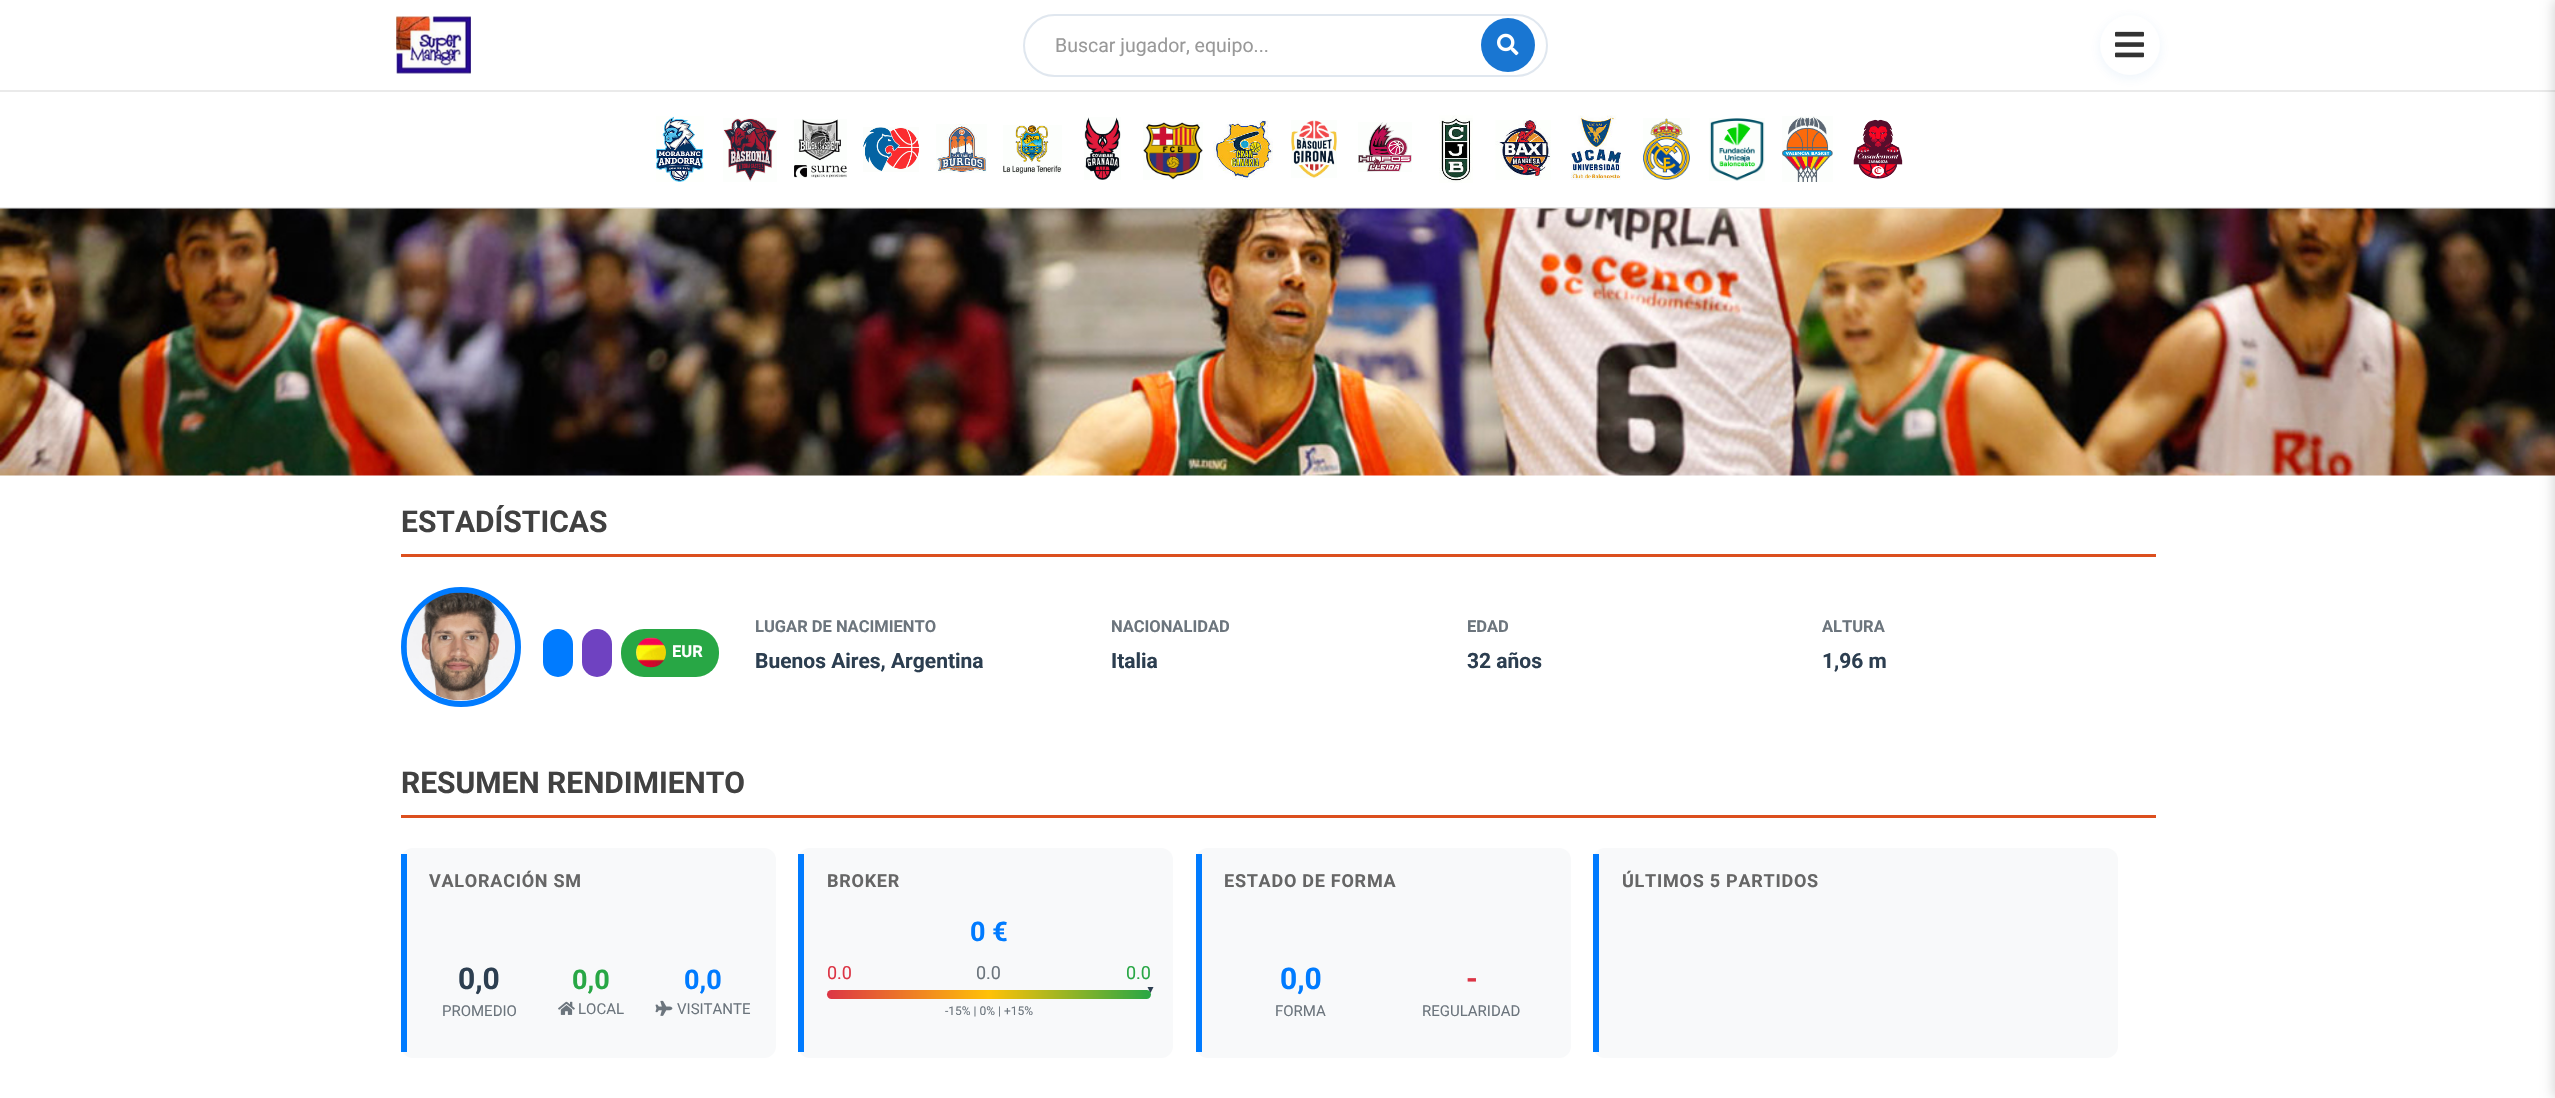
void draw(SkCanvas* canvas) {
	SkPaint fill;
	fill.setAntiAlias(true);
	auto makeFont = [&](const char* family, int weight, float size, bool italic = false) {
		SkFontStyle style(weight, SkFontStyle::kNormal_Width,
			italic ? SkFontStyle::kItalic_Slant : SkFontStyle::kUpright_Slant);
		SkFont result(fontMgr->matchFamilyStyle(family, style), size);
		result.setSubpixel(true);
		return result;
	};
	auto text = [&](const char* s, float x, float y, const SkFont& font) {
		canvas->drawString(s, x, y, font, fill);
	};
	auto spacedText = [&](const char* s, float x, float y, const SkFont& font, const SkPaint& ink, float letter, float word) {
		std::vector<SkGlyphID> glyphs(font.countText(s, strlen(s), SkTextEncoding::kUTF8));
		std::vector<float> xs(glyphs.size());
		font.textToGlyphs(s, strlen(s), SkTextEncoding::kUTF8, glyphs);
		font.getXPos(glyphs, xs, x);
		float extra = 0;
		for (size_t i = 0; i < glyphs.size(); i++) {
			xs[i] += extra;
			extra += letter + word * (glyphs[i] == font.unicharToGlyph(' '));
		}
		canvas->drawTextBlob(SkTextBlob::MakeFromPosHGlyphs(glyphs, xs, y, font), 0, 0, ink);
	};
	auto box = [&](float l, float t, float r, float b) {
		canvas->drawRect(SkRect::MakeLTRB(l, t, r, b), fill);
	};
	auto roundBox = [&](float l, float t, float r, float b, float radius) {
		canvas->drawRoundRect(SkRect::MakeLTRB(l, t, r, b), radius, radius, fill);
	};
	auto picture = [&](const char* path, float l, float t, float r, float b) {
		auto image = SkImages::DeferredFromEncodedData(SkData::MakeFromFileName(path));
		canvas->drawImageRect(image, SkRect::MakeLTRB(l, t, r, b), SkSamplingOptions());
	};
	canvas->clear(0xFFFFFFFF);
	picture("image0.png", 396, 16, 471, 74);
	fill.setStyle(SkPaint::kStroke_Style);
	fill.setStrokeWidth(2);
	fill.setColor(0xFFE0E7EF);
	canvas->drawRoundRect(SkRect::MakeLTRB(1024, 15, 1547, 76), 30.5f, 30.5f, fill);
	fill.setStyle(SkPaint::kFill_Style);
	fill.setColor(0xFF1976D2);
	canvas->drawCircle(1508, 45, 27, fill);
	picture("image1.png", 1497, 33, 1519, 56);
	fill.setColor(0xFFEAEAEA);
	box(0, 90, 2555, 92);
	fill.setColor(0x141976D2);
	fill.setMaskFilter(SkMaskFilter::MakeBlur(kNormal_SkBlurStyle, 6));
	canvas->drawRoundRect(SkRect::MakeLTRB(2100, 18, 2160, 78), 30, 30, fill);
	fill.setMaskFilter(nullptr);
	fill.setColor(0xFFFFFFFF);
	canvas->drawCircle(2130, 45, 30, fill);
	picture("image2.png", 2115, 31, 2144, 58);
	fill.setColor(0xFFEAEAEA);
	box(0, 207, 2555, 209);
	picture("image21.png", 0, 208, 2555, 476);
	fill.setColor(0x26000000);
	fill.setMaskFilter(SkMaskFilter::MakeBlur(kNormal_SkBlurStyle, 6));
	canvas->drawRect(SkRect::MakeLTRB(2553, 0, 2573, 1098), fill);
	fill.setMaskFilter(nullptr);
	picture("image3.png", 656, 116, 704, 182);
	picture("image4.png", 723, 118, 777, 182);
	picture("image5.png", 794, 119, 847, 178);
	picture("image6.png", 863, 127, 919, 172);
	picture("image7.png", 936, 124, 987, 173);
	picture("image8.png", 1003, 125, 1062, 174);
	picture("image9.png", 1084, 117, 1121, 180);
	picture("image10.png", 1143, 122, 1203, 180);
	picture("image11.png", 1213, 120, 1273, 180);
	picture("image12.png", 1291, 120, 1337, 178);
	picture("image13.png", 1358, 122, 1412, 172);
	picture("image14.png", 1439, 115, 1473, 183);
	picture("image15.png", 1495, 120, 1551, 180);
	picture("image16.png", 1570, 115, 1621, 180);
	picture("image17.png", 1643, 118, 1690, 180);
	picture("image18.png", 1709, 118, 1765, 181);
	picture("image19.png", 1782, 116, 1833, 182);
	picture("image20.png", 1853, 119, 1903, 179);
	fill.setColor(0xFFDC4F1E);
	box(401, 554, 2156, 557);
	fill.setStyle(SkPaint::kStroke_Style);
	fill.setStrokeWidth(6);
	fill.setColor(0xFF007BFF);
	canvas->drawCircle(461, 647, 57, fill);
	picture("image22.png", 406, 592, 515, 701);
	fill.setStyle(SkPaint::kFill_Style);
	roundBox(543, 629, 573, 677, 15);
	fill.setColor(0xFF6F42C1);
	roundBox(582, 629, 612, 677, 15);
	fill.setColor(0xFF28A745);
	roundBox(621, 629, 719, 677, 23);
	picture("image23.png", 636, 637, 666, 668);
	fill.setColor(0xFFDC4F1E);
	box(401, 815, 2156, 818);
	fill.setColor(0xFFF8F9FA);
	roundBox(401, 848, 776, 1058, 12);
	fill.setColor(0xFF007BFF);
	box(401, 854, 407, 1052);
	picture("image24.png", 558, 1001, 575, 1015);
	picture("image25.png", 655, 1000, 673, 1016);
	fill.setColor(0xFFF8F9FA);
	roundBox(798, 848, 1173, 1058, 12);
	fill.setColor(0xFF007BFF);
	box(798, 854, 804, 1052);
	{
		const SkColor colors[] = {0xFFDC3545, 0xFFFFC107, 0xFF28A745};
		const float stops[] = {0, 0.5f, 1};
		const SkPoint ends[] = {{827, 995}, {1151, 995}};
		fill.setShader(SkGradientShader::MakeLinear(ends, colors, stops, 3, SkTileMode::kClamp));
		fill.setAlpha(255);
	}
	roundBox(827, 990, 1151, 999, 4.5f);
	fill.setShader(nullptr);
	fill.setColor(0xFF2C3E50);
	canvas->drawPath(SkPathBuilder().moveTo(1147.5f, 987).lineTo(1153.5f, 987).lineTo(1150.5f, 993).close().detach(), fill);
	fill.setColor(0xFFF8F9FA);
	roundBox(1196, 848, 1571, 1058, 12);
	fill.setColor(0xFF007BFF);
	box(1196, 854, 1202, 1052);
	fill.setColor(0xFFF8F9FA);
	roundBox(1593, 848, 2118, 1058, 12);
	fill.setColor(0xFF007BFF);
	box(1593, 854, 1599, 1052);
	auto font1 = makeFont("Roboto", 400, 19.5f);
	fill.setColor(0xFF999999);
	text("Buscar jugador, equipo...", 1055, 52, font1);
	auto font2 = makeFont("Roboto", 700, 30);
	fill.setColor(0xFF414141);
	text("ESTADÍSTICAS", 401, 532, font2);
	auto font3 = makeFont("Roboto", 700, 16.5f);
	fill.setColor(0xFFFFFFFF);
	text("EUR", 672, 657, font3);
	fill.setColor(0xFF6C757D);
	text("LUGAR DE NACIMIENTO", 755, 632, font3);
	auto font4 = makeFont("Roboto", 700, 21);
	fill.setColor(0xFF2C3E50);
	text("Buenos Aires, Argentina", 755, 668, font4);
	fill.setColor(0xFF6C757D);
	text("NACIONALIDAD", 1111, 632, font3);
	fill.setColor(0xFF2C3E50);
	text("Italia", 1111, 668, font4);
	fill.setColor(0xFF6C757D);
	text("EDAD", 1467, 632, font3);
	fill.setColor(0xFF2C3E50);
	text("32 años", 1467, 668, font4);
	fill.setColor(0xFF6C757D);
	text("ALTURA", 1822, 632, font3);
	fill.setColor(0xFF2C3E50);
	text("1,96 m", 1822, 668, font4);
	fill.setColor(0xFF414141);
	text("RESUMEN RENDIMIENTO", 401, 793, font2);
	auto font5 = makeFont("Roboto", 700, 18);
	fill.setColor(0xFF666666);
	spacedText("VALORACIÓN SM", 429, 887, font5, fill, 0.75f, 0);
	fill.setColor(0xFF2C3E50);
	text("0,0", 458, 989, font2);
	auto font6 = makeFont("Roboto", 400, 15);
	fill.setColor(0xFF6C757D);
	text("PROMEDIO", 442, 1016, font6);
	auto font7 = makeFont("Roboto", 700, 27);
	fill.setColor(0xFF28A745);
	text("0,0", 572, 989, font7);
	fill.setColor(0xFF6C757D);
	text("LOCAL", 578, 1014, font6);
	fill.setColor(0xFF007BFF);
	text("0,0", 684, 989, font7);
	fill.setColor(0xFF6C757D);
	text("VISITANTE", 677, 1014, font6);
	fill.setColor(0xFF666666);
	spacedText("BROKER", 827, 887, font5, fill, 0.75f, 0);
	fill.setColor(0xFF007BFF);
	text("0 €", 970, 941, font7);
	auto font8 = makeFont("Roboto", 400, 18);
	fill.setColor(0xFFDC3545);
	text("0.0", 827, 979, font8);
	fill.setColor(0xFF6C757D);
	text("0.0", 976, 979, font8);
	fill.setColor(0xFF28A745);
	text("0.0", 1126, 979, font8);
	auto font9 = makeFont("Roboto", 400, 12);
	fill.setColor(0xFF6C757D);
	text("-15% | 0% | +15%", 945, 1015, font9);
	fill.setColor(0xFF666666);
	spacedText("ESTADO DE FORMA", 1224, 887, font5, fill, 0.75f, 0);
	fill.setColor(0xFF007BFF);
	text("0,0", 1280, 989, font2);
	fill.setColor(0xFF6C757D);
	text("FORMA", 1275, 1016, font6);
	fill.setColor(0xFFDC3545);
	text("-", 1466, 989, font2);
	fill.setColor(0xFF6C757D);
	text("REGULARIDAD", 1422, 1016, font6);
	fill.setColor(0xFF666666);
	spacedText("ÚLTIMOS 5 PARTIDOS", 1622, 887, font5, fill, 0.75f, 0);
}
